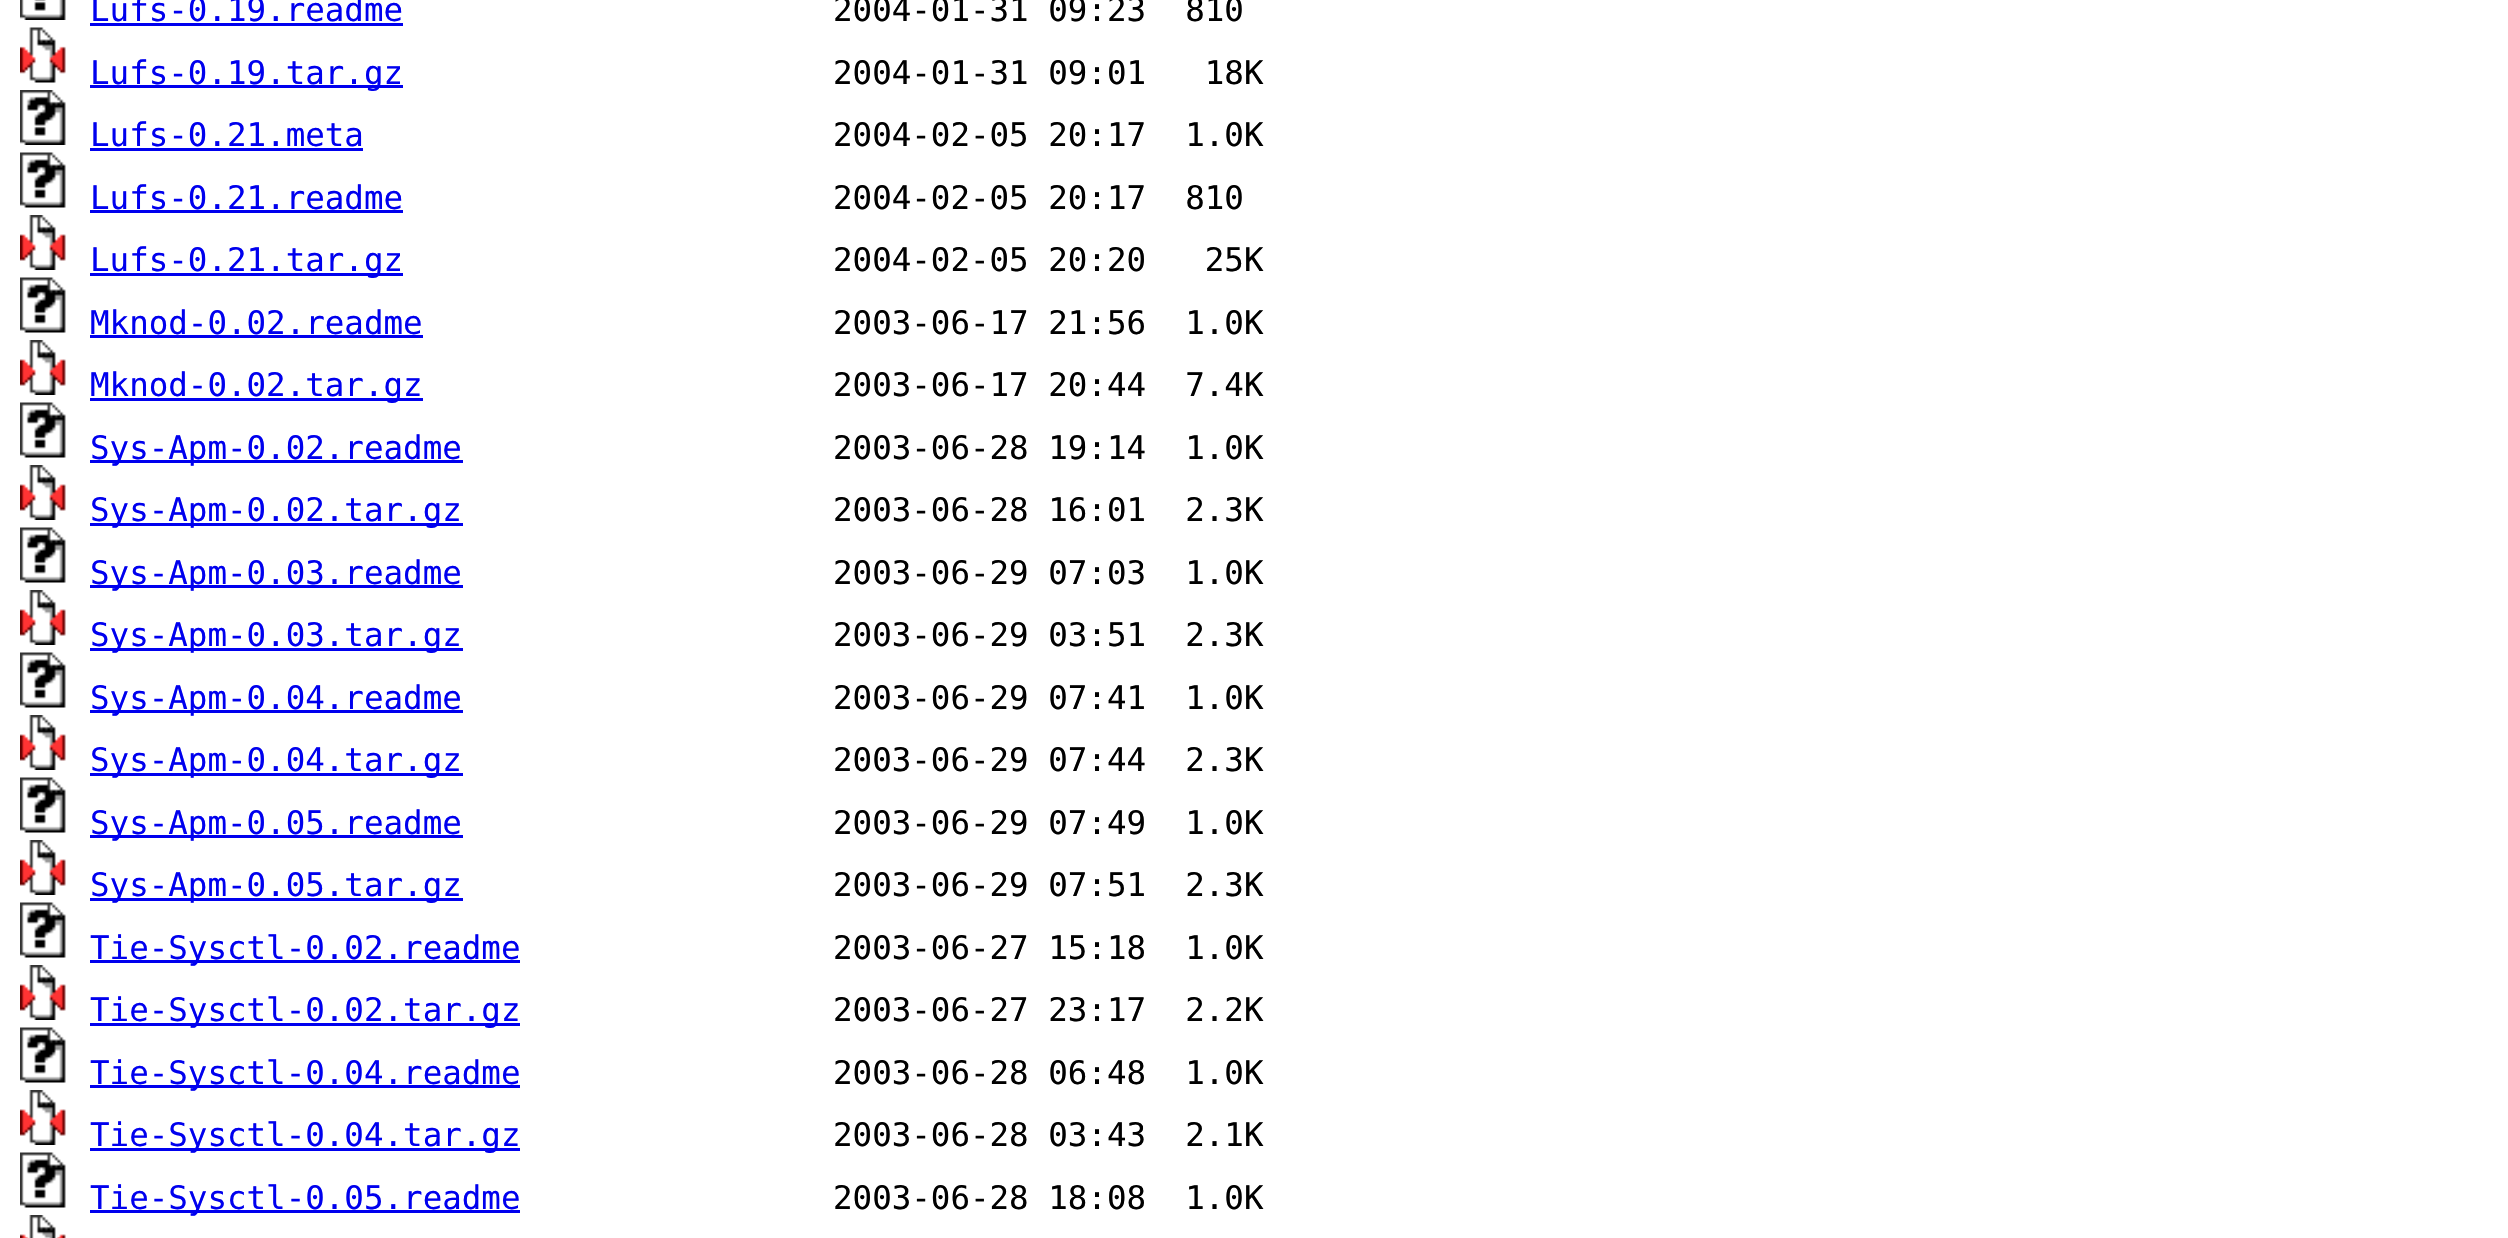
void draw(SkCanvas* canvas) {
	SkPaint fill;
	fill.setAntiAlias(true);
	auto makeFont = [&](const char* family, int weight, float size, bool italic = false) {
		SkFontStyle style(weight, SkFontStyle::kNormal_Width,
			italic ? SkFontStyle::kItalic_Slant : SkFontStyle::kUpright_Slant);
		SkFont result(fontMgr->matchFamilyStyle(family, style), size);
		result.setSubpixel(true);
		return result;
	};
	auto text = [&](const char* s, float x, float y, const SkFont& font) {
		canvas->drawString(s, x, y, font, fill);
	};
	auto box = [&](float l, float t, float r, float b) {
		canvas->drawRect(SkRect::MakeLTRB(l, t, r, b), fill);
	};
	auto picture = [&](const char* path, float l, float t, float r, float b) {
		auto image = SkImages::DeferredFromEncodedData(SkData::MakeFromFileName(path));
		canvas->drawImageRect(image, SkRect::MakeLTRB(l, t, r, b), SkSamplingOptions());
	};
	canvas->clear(0xFFFFFFFF);
	picture("image0.png", 20, 0, 66, 20);
	fill.setColor(0xFF0000EE);
	box(90, 23, 403, 26);
	picture("image1.png", 20, 27, 66, 83);
	box(90, 85, 403, 88);
	picture("image2.png", 20, 90, 66, 145);
	box(90, 148, 363, 151);
	picture("image3.png", 20, 152, 66, 208);
	box(90, 210, 403, 213);
	picture("image4.png", 20, 215, 66, 270);
	box(90, 273, 403, 276);
	picture("image3.png", 20, 277, 66, 333);
	box(90, 335, 423, 338);
	picture("image4.png", 20, 340, 66, 395);
	box(90, 398, 423, 401);
	picture("image5.png", 20, 402, 66, 458);
	box(90, 460, 463, 463);
	picture("image4.png", 20, 465, 66, 520);
	box(90, 523, 463, 526);
	picture("image3.png", 20, 527, 66, 583);
	box(90, 585, 463, 588);
	picture("image4.png", 20, 590, 66, 645);
	box(90, 648, 463, 651);
	picture("image3.png", 20, 652, 66, 708);
	box(90, 710, 463, 713);
	picture("image4.png", 20, 715, 66, 770);
	box(90, 773, 463, 776);
	picture("image3.png", 20, 777, 66, 833);
	box(90, 835, 463, 838);
	picture("image4.png", 20, 840, 66, 895);
	box(90, 898, 463, 901);
	picture("image3.png", 20, 902, 66, 958);
	box(90, 960, 520, 963);
	picture("image4.png", 20, 965, 66, 1020);
	box(90, 1023, 520, 1026);
	picture("image3.png", 20, 1027, 66, 1083);
	box(90, 1085, 520, 1088);
	picture("image4.png", 20, 1090, 66, 1145);
	box(90, 1148, 520, 1151);
	picture("image3.png", 20, 1152, 66, 1208);
	box(90, 1210, 520, 1213);
	picture("image6.png", 20, 1215, 66, 1238);
	auto font1 = makeFont("DejaVu Sans Mono", 400, 32.5f);
	text("Lufs-0.19.readme", 90, 21, font1);
	fill.setColor(0xFF000000);
	text("2004-01-31 09:23  810", 833, 21, font1);
	fill.setColor(0xFF0000EE);
	text("Lufs-0.19.tar.gz", 90, 84, font1);
	fill.setColor(0xFF000000);
	text("2004-01-31 09:01   18K", 833, 84, font1);
	fill.setColor(0xFF0000EE);
	text("Lufs-0.21.meta", 90, 146, font1);
	fill.setColor(0xFF000000);
	text("2004-02-05 20:17  1.0K", 833, 146, font1);
	fill.setColor(0xFF0000EE);
	text("Lufs-0.21.readme", 90, 209, font1);
	fill.setColor(0xFF000000);
	text("2004-02-05 20:17  810", 833, 209, font1);
	fill.setColor(0xFF0000EE);
	text("Lufs-0.21.tar.gz", 90, 271, font1);
	fill.setColor(0xFF000000);
	text("2004-02-05 20:20   25K", 833, 271, font1);
	fill.setColor(0xFF0000EE);
	text("Mknod-0.02.readme", 90, 334, font1);
	fill.setColor(0xFF000000);
	text("2003-06-17 21:56  1.0K", 833, 334, font1);
	fill.setColor(0xFF0000EE);
	text("Mknod-0.02.tar.gz", 90, 396, font1);
	fill.setColor(0xFF000000);
	text("2003-06-17 20:44  7.4K", 833, 396, font1);
	fill.setColor(0xFF0000EE);
	text("Sys-Apm-0.02.readme", 90, 459, font1);
	fill.setColor(0xFF000000);
	text("2003-06-28 19:14  1.0K", 833, 459, font1);
	fill.setColor(0xFF0000EE);
	text("Sys-Apm-0.02.tar.gz", 90, 521, font1);
	fill.setColor(0xFF000000);
	text("2003-06-28 16:01  2.3K", 833, 521, font1);
	fill.setColor(0xFF0000EE);
	text("Sys-Apm-0.03.readme", 90, 584, font1);
	fill.setColor(0xFF000000);
	text("2003-06-29 07:03  1.0K", 833, 584, font1);
	fill.setColor(0xFF0000EE);
	text("Sys-Apm-0.03.tar.gz", 90, 646, font1);
	fill.setColor(0xFF000000);
	text("2003-06-29 03:51  2.3K", 833, 646, font1);
	fill.setColor(0xFF0000EE);
	text("Sys-Apm-0.04.readme", 90, 709, font1);
	fill.setColor(0xFF000000);
	text("2003-06-29 07:41  1.0K", 833, 709, font1);
	fill.setColor(0xFF0000EE);
	text("Sys-Apm-0.04.tar.gz", 90, 771, font1);
	fill.setColor(0xFF000000);
	text("2003-06-29 07:44  2.3K", 833, 771, font1);
	fill.setColor(0xFF0000EE);
	text("Sys-Apm-0.05.readme", 90, 834, font1);
	fill.setColor(0xFF000000);
	text("2003-06-29 07:49  1.0K", 833, 834, font1);
	fill.setColor(0xFF0000EE);
	text("Sys-Apm-0.05.tar.gz", 90, 896, font1);
	fill.setColor(0xFF000000);
	text("2003-06-29 07:51  2.3K", 833, 896, font1);
	fill.setColor(0xFF0000EE);
	text("Tie-Sysctl-0.02.readme", 90, 959, font1);
	fill.setColor(0xFF000000);
	text("2003-06-27 15:18  1.0K", 833, 959, font1);
	fill.setColor(0xFF0000EE);
	text("Tie-Sysctl-0.02.tar.gz", 90, 1021, font1);
	fill.setColor(0xFF000000);
	text("2003-06-27 23:17  2.2K", 833, 1021, font1);
	fill.setColor(0xFF0000EE);
	text("Tie-Sysctl-0.04.readme", 90, 1084, font1);
	fill.setColor(0xFF000000);
	text("2003-06-28 06:48  1.0K", 833, 1084, font1);
	fill.setColor(0xFF0000EE);
	text("Tie-Sysctl-0.04.tar.gz", 90, 1146, font1);
	fill.setColor(0xFF000000);
	text("2003-06-28 03:43  2.1K", 833, 1146, font1);
	fill.setColor(0xFF0000EE);
	text("Tie-Sysctl-0.05.readme", 90, 1209, font1);
	fill.setColor(0xFF000000);
	text("2003-06-28 18:08  1.0K", 833, 1209, font1);
}
